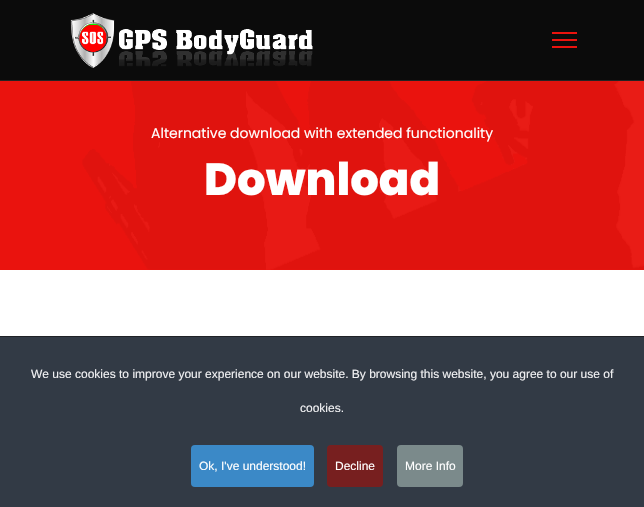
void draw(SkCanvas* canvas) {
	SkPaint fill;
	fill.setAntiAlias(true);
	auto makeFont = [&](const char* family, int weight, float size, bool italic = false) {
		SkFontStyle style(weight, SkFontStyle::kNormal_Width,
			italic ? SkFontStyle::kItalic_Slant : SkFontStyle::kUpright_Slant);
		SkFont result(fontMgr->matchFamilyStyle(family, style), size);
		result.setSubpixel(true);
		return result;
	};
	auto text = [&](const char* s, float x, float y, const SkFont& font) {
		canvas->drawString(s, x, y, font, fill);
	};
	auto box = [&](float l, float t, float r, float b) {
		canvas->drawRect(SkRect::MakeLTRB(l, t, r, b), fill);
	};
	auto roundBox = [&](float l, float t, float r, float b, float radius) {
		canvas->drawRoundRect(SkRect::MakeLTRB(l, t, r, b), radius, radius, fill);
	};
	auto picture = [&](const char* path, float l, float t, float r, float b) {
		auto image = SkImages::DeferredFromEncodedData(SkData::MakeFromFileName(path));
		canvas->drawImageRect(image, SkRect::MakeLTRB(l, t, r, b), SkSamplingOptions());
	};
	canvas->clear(0xFFFFFFFF);
	fill.setColor(0xFF0B0B0B);
	box(0, 0, 644, 80);
	fill.setColor(0xFF232323);
	box(0, 80, 644, 81);
	picture("image0.png", 70, 13, 313, 68);
	fill.setColor(0xFFEA130E);
	box(552, 32, 577, 34);
	box(552, 39, 577, 41);
	box(552, 46, 577, 48);
	box(0, 81, 644, 270);
	picture("image1.png", 82, 81, 644, 270);
	fill.setColor(0xFF323A45);
	box(0, 337, 644, 507);
	fill.setColor(0xFF202226);
	box(0, 336, 644, 337);
	fill.setColor(0xFF3B89C7);
	roundBox(191, 445, 314, 487, 4);
	fill.setColor(0xFF771F1F);
	roundBox(327, 445, 383, 487, 4);
	fill.setColor(0xFF7B8A8B);
	roundBox(397, 445, 463, 487, 4);
	auto font1 = makeFont("Poppins", 400, 14);
	fill.setColor(0xFFFFFFFF);
	text("Alternative download with extended functionality", 151, 138, font1);
	auto font2 = makeFont("Poppins", 800, 45);
	text("Download", 204, 195, font2);
	auto font3 = makeFont("Liberation Sans", 400, 12);
	fill.setColor(0xFFF1F1F3);
	text("We use cookies to improve your experience on our website. By browsing this website, you agree to our use of", 31, 378, font3);
	text("cookies.", 300, 412, font3);
	fill.setColor(0xFFFFFFFF);
	text("Ok, I've understood!", 199, 470, font3);
	text("Decline", 335, 470, font3);
	text("More Info", 405, 470, font3);
}
